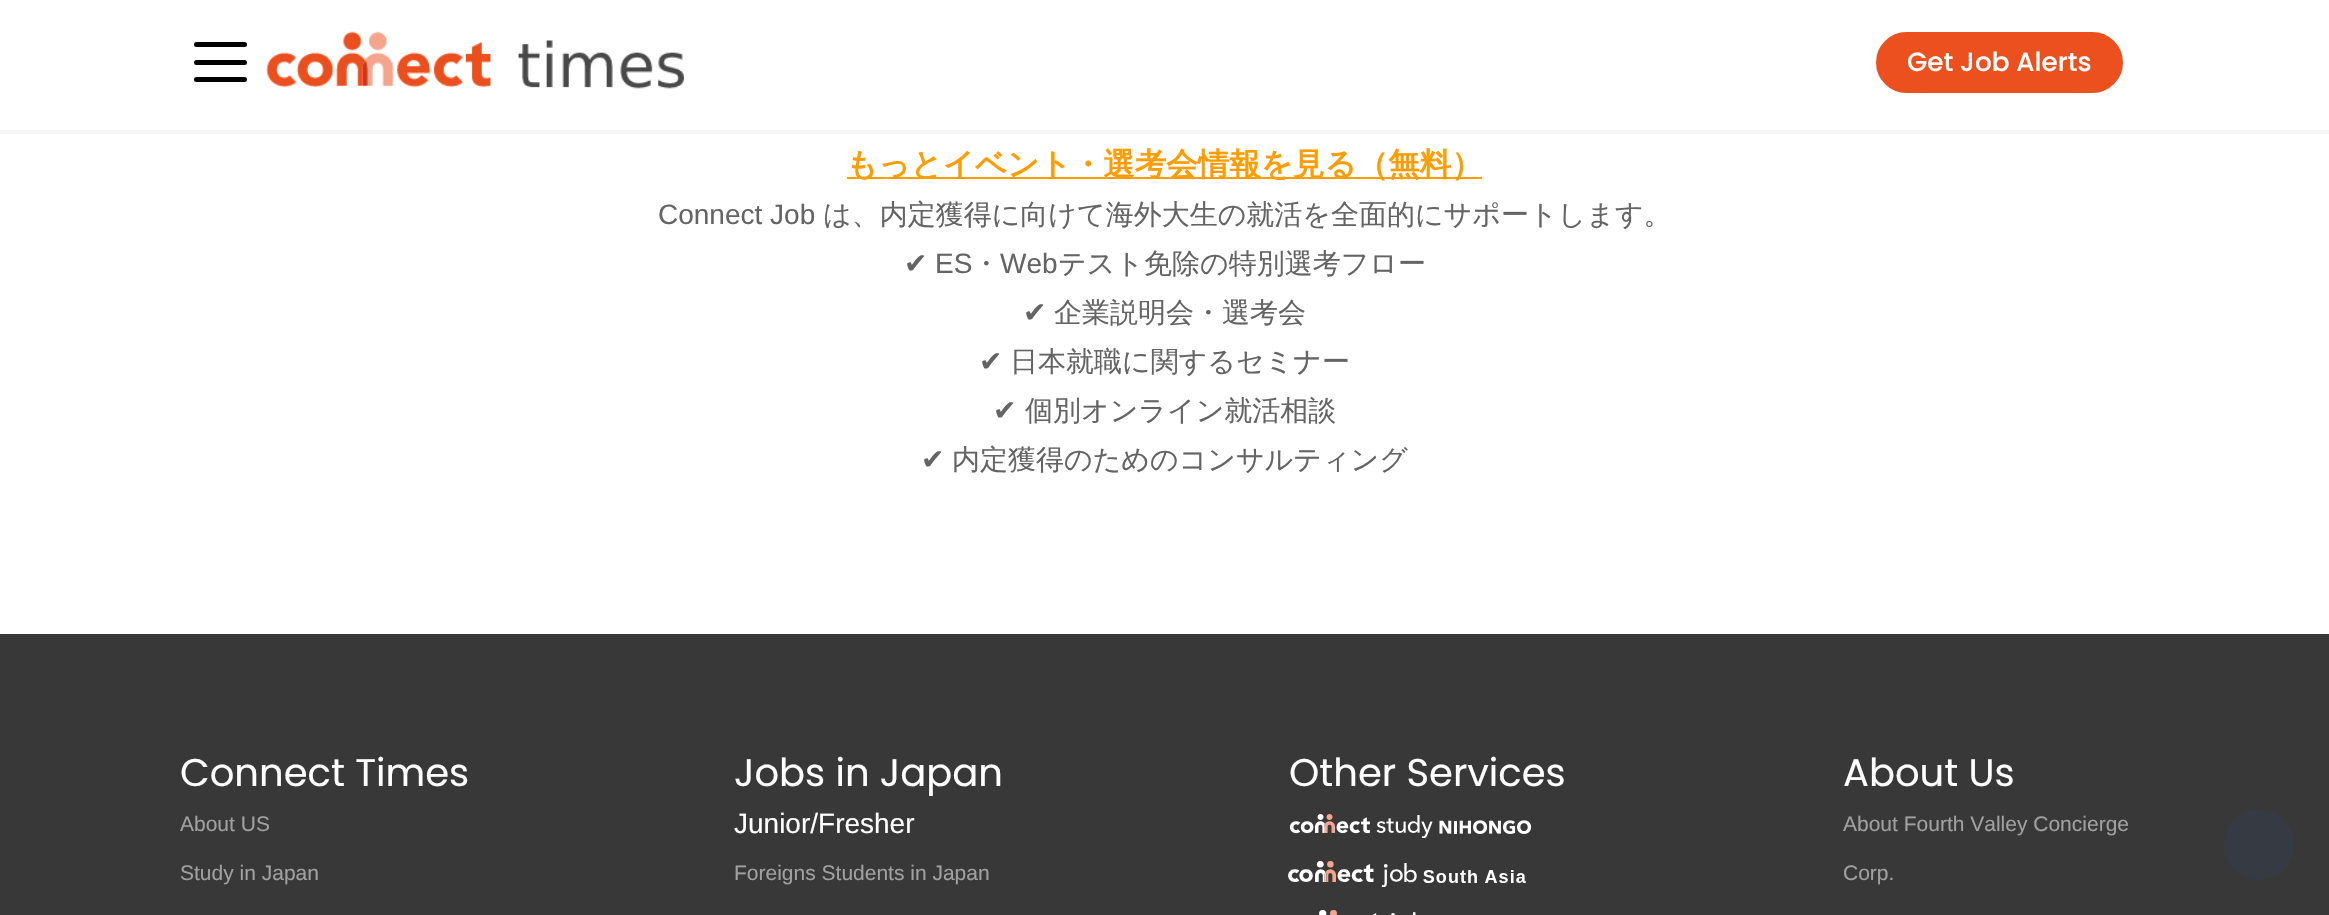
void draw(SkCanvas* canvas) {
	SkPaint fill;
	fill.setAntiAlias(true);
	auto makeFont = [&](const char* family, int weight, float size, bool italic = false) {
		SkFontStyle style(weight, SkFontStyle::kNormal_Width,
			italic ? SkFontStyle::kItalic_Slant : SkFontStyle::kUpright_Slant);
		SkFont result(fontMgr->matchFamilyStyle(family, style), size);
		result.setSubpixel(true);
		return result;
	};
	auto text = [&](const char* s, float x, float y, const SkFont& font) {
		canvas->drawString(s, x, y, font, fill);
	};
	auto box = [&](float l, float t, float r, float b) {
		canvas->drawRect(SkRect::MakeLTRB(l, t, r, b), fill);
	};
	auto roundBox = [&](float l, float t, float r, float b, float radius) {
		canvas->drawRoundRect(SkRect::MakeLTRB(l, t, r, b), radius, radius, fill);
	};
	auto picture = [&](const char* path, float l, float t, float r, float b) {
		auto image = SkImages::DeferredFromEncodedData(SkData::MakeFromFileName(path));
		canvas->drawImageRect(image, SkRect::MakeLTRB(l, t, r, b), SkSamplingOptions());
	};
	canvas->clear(0xFFFFFFFF);
	fill.setColor(0xFFF7F6F6);
	box(0, 130, 2329, 134);
	fill.setColor(0xFF000000);
	roundBox(194, 60, 247, 65, 2.5f);
	roundBox(194, 42, 247, 47, 2.5f);
	roundBox(194, 77, 247, 82, 2.5f);
	picture("image0.png", 266, 31, 685, 89);
	fill.setColor(0xFFEB501E);
	canvas->drawRoundRect(SkRect::MakeLTRB(1878, 34, 2121, 91), 28.5f, 28.5f, fill);
	fill.setStyle(SkPaint::kStroke_Style);
	fill.setStrokeWidth(4);
	canvas->drawRoundRect(SkRect::MakeLTRB(1878, 34, 2121, 91), 28.5f, 28.5f, fill);
	fill.setStyle(SkPaint::kFill_Style);
	fill.setColor(0xFFFF9C00);
	box(847, 177, 1482, 179);
	fill.setColor(0xFF383838);
	box(0, 634, 2329, 915);
	picture("image1.png", 1289, 814, 1532, 838);
	picture("image2.png", 1288, 861, 1526, 887);
	picture("image3.png", 1319, 910, 1416, 915);
	fill.setColor(0xFF363B43);
	canvas->drawCircle(2259, 845, 35, fill);
	auto font1 = makeFont("Poppins", 500, 26.25f);
	fill.setColor(0xFFFFFFFF);
	text("Get Job Alerts", 1907, 71, font1);
	auto font2 = makeFont("WenQuanYi Zen Hei", 700, 31.5f);
	fill.setColor(0xFFFF9C00);
	text("もっとイベント・選考会情報を見る（無料）", 846, 175, font2);
	auto font3 = makeFont("Liberation Sans", 400, 28);
	fill.setColor(0xFF646464);
	text("Connect Job", 658, 224, font3);
	auto font4 = makeFont("WenQuanYi Zen Hei", 500, 28);
	text("は、内定獲得に向けて海外大生の就活を全面的にサポートします。", 823, 224, font4);
	auto font5 = makeFont("DejaVu Sans", 400, 28);
	text("✔", 904, 273, font5);
	text("ES", 935, 273, font3);
	text("・", 972, 273, font4);
	text("Web", 1000, 273, font3);
	text("テスト免除の特別選考フロー", 1058, 273, font4);
	text("✔", 1023, 322, font5);
	text("企業説明会・選考会", 1054, 322, font4);
	text("✔", 979, 371, font5);
	text("日本就職に関するセミナー", 1010, 371, font4);
	text("✔", 993, 420, font5);
	text("個別オンライン就活相談", 1025, 420, font4);
	text("✔", 921, 469, font5);
	text("内定獲得のためのコンサルティング", 952, 469, font4);
	auto font6 = makeFont("Poppins", 400, 38.5f);
	fill.setColor(0xFFFFFFFF);
	text("Connect Times", 180, 786, font6);
	auto font7 = makeFont("Liberation Sans", 400, 21);
	fill.setColor(0xFFA0A0A0);
	text("About US", 180, 831, font7);
	text("Study in Japan", 180, 880, font7);
	fill.setColor(0xFFFFFFFF);
	text("Jobs in Japan", 734, 786, font6);
	text("Junior/Fresher", 734, 833, font3);
	fill.setColor(0xFFA0A0A0);
	text("Foreigns Students in Japan", 734, 880, font7);
	fill.setColor(0xFFFFFFFF);
	text("Other Services", 1289, 786, font6);
	text("About Us", 1843, 786, font6);
	fill.setColor(0xFFA0A0A0);
	text("About Fourth Valley Concierge", 1843, 831, font7);
	text("Corp.", 1843, 880, font7);
}
